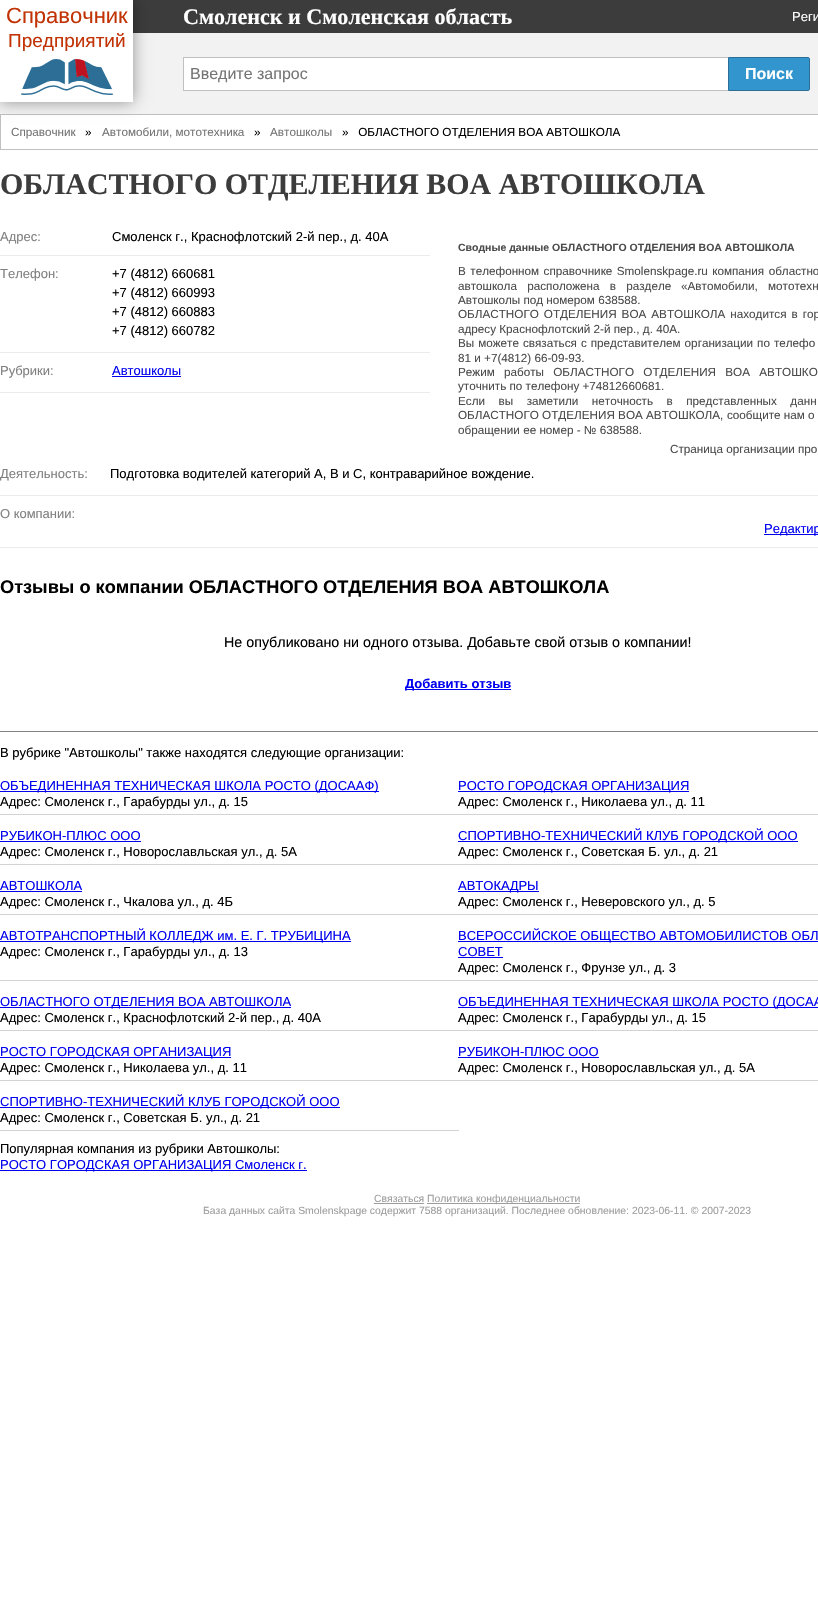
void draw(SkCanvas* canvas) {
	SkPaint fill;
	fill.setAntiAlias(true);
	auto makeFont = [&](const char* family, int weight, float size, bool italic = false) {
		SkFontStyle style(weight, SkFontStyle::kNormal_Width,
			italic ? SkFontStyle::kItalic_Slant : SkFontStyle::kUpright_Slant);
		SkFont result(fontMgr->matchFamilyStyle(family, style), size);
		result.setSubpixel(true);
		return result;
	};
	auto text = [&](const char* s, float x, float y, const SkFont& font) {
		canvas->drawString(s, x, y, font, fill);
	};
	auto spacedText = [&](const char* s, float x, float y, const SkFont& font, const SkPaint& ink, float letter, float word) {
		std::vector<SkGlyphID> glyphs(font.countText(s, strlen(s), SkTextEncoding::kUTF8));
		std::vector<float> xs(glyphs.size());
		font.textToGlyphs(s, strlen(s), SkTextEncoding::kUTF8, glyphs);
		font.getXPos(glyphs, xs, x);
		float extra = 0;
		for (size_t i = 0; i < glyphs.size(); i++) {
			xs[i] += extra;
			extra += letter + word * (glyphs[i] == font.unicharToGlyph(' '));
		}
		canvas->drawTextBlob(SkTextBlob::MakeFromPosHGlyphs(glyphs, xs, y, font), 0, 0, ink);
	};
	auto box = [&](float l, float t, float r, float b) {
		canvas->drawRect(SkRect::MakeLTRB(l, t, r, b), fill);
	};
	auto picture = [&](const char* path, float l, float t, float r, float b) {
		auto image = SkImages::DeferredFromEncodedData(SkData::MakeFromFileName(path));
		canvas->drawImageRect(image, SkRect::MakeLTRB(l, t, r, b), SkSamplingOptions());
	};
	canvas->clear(0xFFFFFFFF);
	fill.setColor(0xFF3C3C3C);
	box(133, 0, 818, 33);
	fill.setColor(0xFFF2F2F2);
	box(0, 33, 818, 114);
	fill.setColor(0xFFC0C0C0);
	box(0, 114, 818, 115);
	box(0, 149, 818, 150);
	box(0, 115, 1, 150);
	fill.setColor(0x66000000);
	fill.setMaskFilter(SkMaskFilter::MakeBlur(kNormal_SkBlurStyle, 7.5f));
	canvas->drawRect(SkRect::MakeLTRB(0, 0, 133, 102), fill);
	fill.setMaskFilter(nullptr);
	fill.setColor(0xFFFFFFFF);
	box(0, 0, 133, 102);
	picture("image0.png", 21, 59, 113, 95);
	box(184, 58, 728, 90);
	fill.setColor(0xFFC0C0C0);
	box(183, 57, 728, 58);
	box(183, 90, 728, 91);
	box(183, 57, 184, 91);
	fill.setColor(0xFF3395CD);
	canvas->drawPath(SkPathBuilder().moveTo(728.5f, 57.5f).lineTo(808, 57.5f).cubicTo(809, 57.5f, 809.5f, 58, 809.5f, 59).lineTo(809.5f, 89).cubicTo(809.5f, 90, 809, 90.5f, 808, 90.5f).lineTo(728.5f, 90.5f).close().detach(), fill);
	fill.setStyle(SkPaint::kStroke_Style);
	fill.setStrokeWidth(1);
	fill.setColor(0xFF2C6E96);
	canvas->drawPath(SkPathBuilder().moveTo(728.5f, 57.5f).lineTo(808, 57.5f).cubicTo(809, 57.5f, 809.5f, 58, 809.5f, 59).lineTo(809.5f, 89).cubicTo(809.5f, 90, 809, 90.5f, 808, 90.5f).lineTo(728.5f, 90.5f).close().detach(), fill);
	fill.setStyle(SkPaint::kFill_Style);
	fill.setColor(0xFFEBEBEB);
	box(0, 255, 430, 256);
	box(0, 352, 430, 353);
	fill.setColor(0xFF0000EE);
	box(112, 376, 181, 377);
	fill.setColor(0xFFEBEBEB);
	box(0, 392, 430, 393);
	box(0, 495, 818, 496);
	fill.setColor(0xFF0000EE);
	box(764, 534, 818, 535);
	fill.setColor(0xFFEBEBEB);
	box(0, 547, 818, 548);
	fill.setColor(0xFF808080);
	box(0, 731, 818, 732);
	fill.setColor(0xFF0000EE);
	box(405, 689, 511, 690);
	box(0, 791, 379, 792);
	fill.setColor(0xFFD3D3D3);
	box(0, 814, 818, 815);
	fill.setColor(0xFF0000EE);
	box(458, 791, 689, 792);
	box(0, 841, 141, 842);
	fill.setColor(0xFFD3D3D3);
	box(0, 864, 818, 865);
	fill.setColor(0xFF0000EE);
	box(458, 841, 798, 842);
	box(0, 891, 82, 892);
	fill.setColor(0xFFD3D3D3);
	box(0, 914, 818, 915);
	fill.setColor(0xFF0000EE);
	box(458, 891, 539, 892);
	box(0, 941, 351, 942);
	fill.setColor(0xFFD3D3D3);
	box(0, 980, 818, 981);
	fill.setColor(0xFF0000EE);
	box(458, 941, 818, 942);
	box(458, 957, 503, 958);
	box(0, 1007, 291, 1008);
	fill.setColor(0xFFD3D3D3);
	box(0, 1030, 818, 1031);
	fill.setColor(0xFF0000EE);
	box(458, 1007, 818, 1008);
	box(0, 1057, 231, 1058);
	fill.setColor(0xFFD3D3D3);
	box(0, 1080, 818, 1081);
	fill.setColor(0xFF0000EE);
	box(458, 1057, 599, 1058);
	fill.setColor(0xFFD3D3D3);
	box(0, 1130, 459, 1131);
	fill.setColor(0xFF0000EE);
	box(0, 1107, 340, 1108);
	box(0, 1170, 307, 1171);
	fill.setColor(0xFF9D9D9D);
	box(374, 1203, 424, 1204);
	box(427, 1203, 580, 1204);
	auto font1 = makeFont("Liberation Sans", 400, 22);
	fill.setColor(0xFFC13204);
	text("Справочник", 6, 23, font1);
	auto font2 = makeFont("Liberation Sans", 400, 19);
	text("Предприятий", 8, 47, font2);
	auto font3 = makeFont("Liberation Serif", 700, 22.1f);
	fill.setColor(0xFFFFFFFF);
	text("Смоленск и Смоленская область", 183, 24, font3);
	auto font4 = makeFont("Liberation Sans", 400, 13);
	text("Реги", 792, 21, font4);
	auto font5 = makeFont("Liberation Sans", 400, 16);
	fill.setColor(0xFF757575);
	text("Введите запрос", 190, 79, font5);
	auto font6 = makeFont("Liberation Sans", 700, 16);
	fill.setColor(0xFFFFFFFF);
	text("Поиск", 745, 79, font6);
	auto font7 = makeFont("Liberation Sans", 400, 11.7f);
	fill.setColor(0xFF757575);
	text("Справочник", 11, 136, font7);
	fill.setColor(0xFF000000);
	text("»", 85, 136, font7);
	fill.setColor(0xFF757575);
	text("Автомобили, мототехника", 102, 136, font7);
	fill.setColor(0xFF000000);
	text("»", 254, 136, font7);
	fill.setColor(0xFF757575);
	text("Автошколы", 270, 136, font7);
	fill.setColor(0xFF000000);
	text("»   ОБЛАСТНОГО ОТДЕЛЕНИЯ ВОА АВТОШКОЛА", 342, 136, font7);
	auto font8 = makeFont("Liberation Serif", 700, 29.9f);
	fill.setColor(0xFF3C3C3C);
	text("ОБЛАСТНОГО ОТДЕЛЕНИЯ ВОА АВТОШКОЛА", 0, 194, font8);
	fill.setColor(0xFF808080);
	text("Адрес:", 0, 241, font4);
	fill.setColor(0xFF000000);
	text("Смоленск г., Краснофлотский 2-й пер., д. 40А", 112, 241, font4);
	fill.setColor(0xFF808080);
	text("Телефон:", 0, 278, font4);
	fill.setColor(0xFF000000);
	text("+7 (4812) 660681", 112, 278, font4);
	text("+7 (4812) 660993", 112, 297, font4);
	text("+7 (4812) 660883", 112, 316, font4);
	text("+7 (4812) 660782", 112, 335, font4);
	fill.setColor(0xFF808080);
	text("Рубрики:", 0, 375, font4);
	fill.setColor(0xFF0000EE);
	text("Автошколы", 112, 375, font4);
	auto font9 = makeFont("Liberation Sans", 700, 10.5f);
	fill.setColor(0xFF4B4B4B);
	text("Сводные данные ОБЛАСТНОГО ОТДЕЛЕНИЯ ВОА АВТОШКОЛА", 458, 251, font9);
	spacedText("В телефонном справочнике Smolenskpage.ru компания областно", 458, 275, font7, fill, 0, 1.25f);
	spacedText("автошкола расположена в разделе", 458, 290, font7, fill, 0, 7);
	spacedText("«Автомобили, мототехн", 681, 290, font7, fill, 0, 7);
	text("Автошколы под номером 638588.", 458, 304, font7);
	spacedText("ОБЛАСТНОГО ОТДЕЛЕНИЯ ВОА АВТОШКОЛА находится в гор", 458, 318, font7, fill, 0, 1.75f);
	text("адресу Краснофлотский 2-й пер., д. 40А.", 458, 333, font7);
	spacedText("Вы можете связаться с представителем организации по телефо", 458, 347, font7, fill, 0, 0.75f);
	text("81 и +7(4812) 66-09-93.", 458, 362, font7);
	spacedText("Режим работы ОБЛАСТНОГО ОТДЕЛЕНИЯ ВОА АВТОШКО", 458, 376, font7, fill, 0, 6);
	text("уточнить по телефону +74812660681.", 458, 390, font7);
	spacedText("Если вы заметили неточность в представленных данн", 458, 405, font7, fill, 0, 10.25f);
	text("ОБЛАСТНОГО ОТДЕЛЕНИЯ ВОА АВТОШКОЛА,", 458, 419, font7);
	text("сообщите нам о", 727, 419, font7);
	text("обращении ее номер - № 638588.", 458, 434, font7);
	text("Cтраница организации про", 670, 453, font7);
	fill.setColor(0xFF808080);
	text("Деятельность:", 0, 478, font4);
	fill.setColor(0xFF000000);
	text("Подготовка водителей категорий А, B и C, контраварийное вождение.", 110, 478, font4);
	fill.setColor(0xFF808080);
	text("О компании:", 0, 518, font4);
	fill.setColor(0xFF0000EE);
	text("Редактир", 764, 533, font4);
	auto font10 = makeFont("Liberation Sans", 700, 18.2f);
	fill.setColor(0xFF000000);
	text("Отзывы о компании ОБЛАСТНОГО ОТДЕЛЕНИЯ ВОА АВТОШКОЛА", 0, 593, font10);
	auto font11 = makeFont("Liberation Sans", 400, 14.3f);
	text("Не опубликовано ни одного отзыва. Добавьте свой отзыв о компании!", 224, 647, font11);
	auto font12 = makeFont("Liberation Sans", 700, 13);
	fill.setColor(0xFF0000EE);
	text("Добавить отзыв", 405, 688, font12);
	fill.setColor(0xFF000000);
	text("В рубрике \"Автошколы\" также находятся следующие организации:", 0, 757, font4);
	fill.setColor(0xFF0000EE);
	text("ОБЪЕДИНЕННАЯ ТЕХНИЧЕСКАЯ ШКОЛА РОСТО (ДОСААФ)", 0, 790, font4);
	fill.setColor(0xFF000000);
	text("Адрес: Смоленск г., Гарабурды ул., д. 15", 0, 806, font4);
	fill.setColor(0xFF0000EE);
	text("РОСТО ГОРОДСКАЯ ОРГАНИЗАЦИЯ", 458, 790, font4);
	fill.setColor(0xFF000000);
	text("Адрес: Смоленск г., Николаева ул., д. 11", 458, 806, font4);
	fill.setColor(0xFF0000EE);
	text("РУБИКОН-ПЛЮС ООО", 0, 840, font4);
	fill.setColor(0xFF000000);
	text("Адрес: Смоленск г., Новорославльская ул., д. 5А", 0, 856, font4);
	fill.setColor(0xFF0000EE);
	text("СПОРТИВНО-ТЕХНИЧЕСКИЙ КЛУБ ГОРОДСКОЙ ООО", 458, 840, font4);
	fill.setColor(0xFF000000);
	text("Адрес: Смоленск г., Советская Б. ул., д. 21", 458, 856, font4);
	fill.setColor(0xFF0000EE);
	text("АВТОШКОЛА", 0, 890, font4);
	fill.setColor(0xFF000000);
	text("Адрес: Смоленск г., Чкалова ул., д. 4Б", 0, 906, font4);
	fill.setColor(0xFF0000EE);
	text("АВТОКАДРЫ", 458, 890, font4);
	fill.setColor(0xFF000000);
	text("Адрес: Смоленск г., Неверовского ул., д. 5", 458, 906, font4);
	fill.setColor(0xFF0000EE);
	text("АВТОТРАНСПОРТНЫЙ КОЛЛЕДЖ им. Е. Г. ТРУБИЦИНА", 0, 940, font4);
	fill.setColor(0xFF000000);
	text("Адрес: Смоленск г., Гарабурды ул., д. 13", 0, 956, font4);
	fill.setColor(0xFF0000EE);
	text("ВСЕРОССИЙСКОЕ ОБЩЕСТВО АВТОМОБИЛИСТОВ ОБЛ", 458, 940, font4);
	text("СОВЕТ", 458, 956, font4);
	fill.setColor(0xFF000000);
	text("Адрес: Смоленск г., Фрунзе ул., д. 3", 458, 972, font4);
	fill.setColor(0xFF0000EE);
	text("ОБЛАСТНОГО ОТДЕЛЕНИЯ ВОА АВТОШКОЛА", 0, 1006, font4);
	fill.setColor(0xFF000000);
	text("Адрес: Смоленск г., Краснофлотский 2-й пер., д. 40А", 0, 1022, font4);
	fill.setColor(0xFF0000EE);
	text("ОБЪЕДИНЕННАЯ ТЕХНИЧЕСКАЯ ШКОЛА РОСТО (ДОСАА", 458, 1006, font4);
	fill.setColor(0xFF000000);
	text("Адрес: Смоленск г., Гарабурды ул., д. 15", 458, 1022, font4);
	fill.setColor(0xFF0000EE);
	text("РОСТО ГОРОДСКАЯ ОРГАНИЗАЦИЯ", 0, 1056, font4);
	fill.setColor(0xFF000000);
	text("Адрес: Смоленск г., Николаева ул., д. 11", 0, 1072, font4);
	fill.setColor(0xFF0000EE);
	text("РУБИКОН-ПЛЮС ООО", 458, 1056, font4);
	fill.setColor(0xFF000000);
	text("Адрес: Смоленск г., Новорославльская ул., д. 5А", 458, 1072, font4);
	fill.setColor(0xFF0000EE);
	text("СПОРТИВНО-ТЕХНИЧЕСКИЙ КЛУБ ГОРОДСКОЙ ООО", 0, 1106, font4);
	fill.setColor(0xFF000000);
	text("Адрес: Смоленск г., Советская Б. ул., д. 21", 0, 1122, font4);
	text("Популярная компания из рубрики Автошколы:", 0, 1153, font4);
	fill.setColor(0xFF0000EE);
	text("РОСТО ГОРОДСКАЯ ОРГАНИЗАЦИЯ Смоленск г.", 0, 1169, font4);
	auto font13 = makeFont("Liberation Sans", 400, 10.4f);
	fill.setColor(0xFF9D9D9D);
	text("Связаться", 374, 1202, font13);
	text("Политика конфиденциальности", 427, 1202, font13);
	text("База данных сайта Smolenskpage содержит 7588 организаций. Последнее обновление: 2023-06-11. © 2007-2023", 203, 1214, font13);
}
